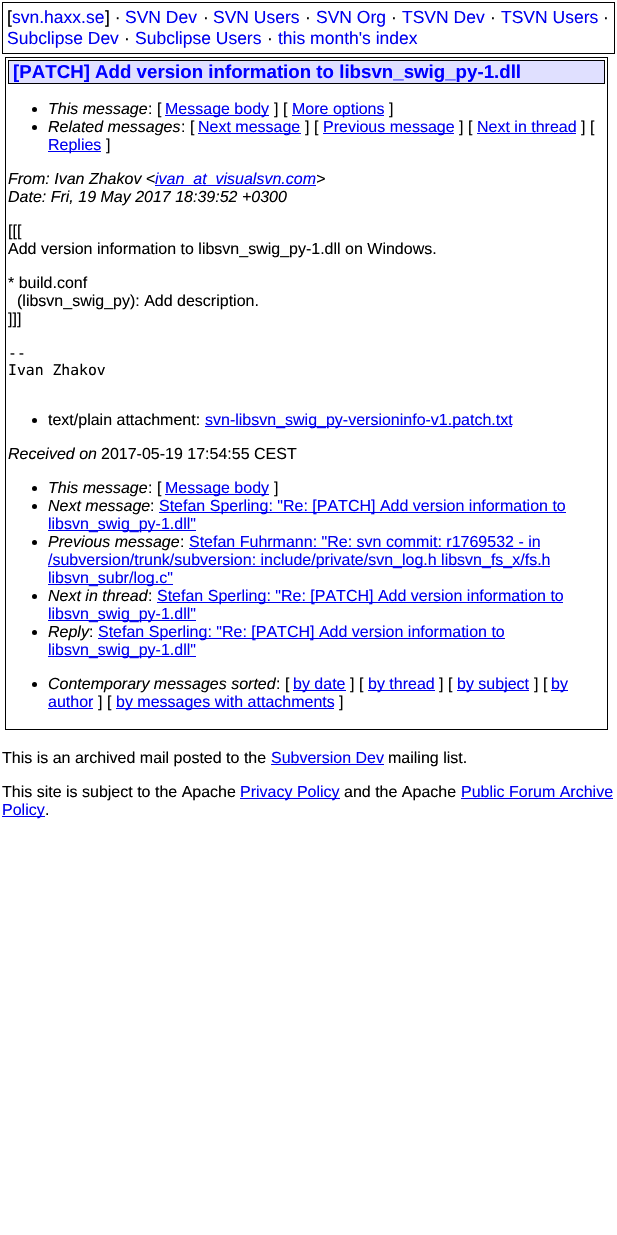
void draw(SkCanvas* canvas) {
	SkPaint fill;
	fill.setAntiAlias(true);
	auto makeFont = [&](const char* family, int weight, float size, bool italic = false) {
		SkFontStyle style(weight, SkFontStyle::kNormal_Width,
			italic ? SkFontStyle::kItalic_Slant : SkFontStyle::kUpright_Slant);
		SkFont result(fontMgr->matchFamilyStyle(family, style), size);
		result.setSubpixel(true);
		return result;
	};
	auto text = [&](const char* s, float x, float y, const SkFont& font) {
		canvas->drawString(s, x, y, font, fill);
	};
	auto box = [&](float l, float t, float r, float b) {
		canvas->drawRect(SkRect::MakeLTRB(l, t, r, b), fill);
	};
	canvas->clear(0xFFFFFFFF);
	fill.setStyle(SkPaint::kStroke_Style);
	fill.setStrokeWidth(1);
	fill.setColor(0xFF000000);
	canvas->drawRect(SkRect::MakeLTRB(2.5f, 2.5f, 614.5f, 53.5f), fill);
	canvas->drawRect(SkRect::MakeLTRB(5.5f, 57.5f, 607.5f, 729.5f), fill);
	fill.setStyle(SkPaint::kFill_Style);
	fill.setColor(0xFFE0E0FF);
	canvas->drawRect(SkRect::MakeLTRB(8.5f, 60.5f, 604.5f, 83.5f), fill);
	fill.setStyle(SkPaint::kStroke_Style);
	fill.setColor(0xFF000000);
	canvas->drawRect(SkRect::MakeLTRB(8.5f, 60.5f, 604.5f, 83.5f), fill);
	fill.setStyle(SkPaint::kFill_Style);
	canvas->drawCircle(34.5f, 109.5f, 2.5f, fill);
	fill.setColor(0xFF0000EE);
	box(165, 115, 269, 116);
	box(292, 115, 384, 116);
	fill.setColor(0xFF000000);
	canvas->drawCircle(34.5f, 127.5f, 2.5f, fill);
	fill.setColor(0xFF0000EE);
	box(198, 133, 301, 134);
	box(323, 133, 454, 134);
	box(477, 133, 576, 134);
	box(48, 151, 101, 152);
	box(155, 185, 316, 186);
	fill.setColor(0xFF000000);
	canvas->drawCircle(34.5f, 420.5f, 2.5f, fill);
	fill.setColor(0xFF0000EE);
	box(205, 426, 512, 427);
	fill.setColor(0xFF000000);
	canvas->drawCircle(34.5f, 488.5f, 2.5f, fill);
	fill.setColor(0xFF0000EE);
	box(165, 494, 269, 495);
	fill.setColor(0xFF000000);
	canvas->drawCircle(34.5f, 506.5f, 2.5f, fill);
	fill.setColor(0xFF0000EE);
	box(159, 512, 566, 513);
	box(48, 530, 196, 531);
	fill.setColor(0xFF000000);
	canvas->drawCircle(34.5f, 542.5f, 2.5f, fill);
	fill.setColor(0xFF0000EE);
	box(189, 548, 540, 549);
	box(48, 566, 550, 567);
	box(48, 584, 173, 585);
	fill.setColor(0xFF000000);
	canvas->drawCircle(34.5f, 596.5f, 2.5f, fill);
	fill.setColor(0xFF0000EE);
	box(157, 602, 563, 603);
	box(48, 620, 196, 621);
	fill.setColor(0xFF000000);
	canvas->drawCircle(34.5f, 632.5f, 2.5f, fill);
	fill.setColor(0xFF0000EE);
	box(98, 638, 505, 639);
	box(48, 656, 196, 657);
	fill.setColor(0xFF000000);
	canvas->drawCircle(34.5f, 684.5f, 2.5f, fill);
	fill.setColor(0xFF0000EE);
	box(293, 690, 346, 691);
	box(368, 690, 435, 691);
	box(457, 690, 529, 691);
	box(551, 690, 568, 691);
	box(48, 708, 93, 709);
	box(116, 708, 334, 709);
	box(271, 764, 384, 765);
	box(240, 798, 340, 799);
	box(461, 798, 613, 799);
	box(2, 816, 45, 817);
	auto font1 = makeFont("Liberation Sans", 400, 17.5f);
	fill.setColor(0xFF000000);
	text("[", 7, 23, font1);
	fill.setColor(0xFF0000EE);
	text("svn.haxx.se", 12, 23, font1);
	fill.setColor(0xFF000000);
	text("] ·", 105, 23, font1);
	fill.setColor(0xFF0000EE);
	text("SVN Dev", 125, 23, font1);
	fill.setColor(0xFF000000);
	text("·", 203, 23, font1);
	fill.setColor(0xFF0000EE);
	text("SVN Users", 213, 23, font1);
	fill.setColor(0xFF000000);
	text("·", 305, 23, font1);
	fill.setColor(0xFF0000EE);
	text("SVN Org", 316, 23, font1);
	fill.setColor(0xFF000000);
	text("·", 391, 23, font1);
	fill.setColor(0xFF0000EE);
	text("TSVN Dev", 402, 23, font1);
	fill.setColor(0xFF000000);
	text("·", 490, 23, font1);
	fill.setColor(0xFF0000EE);
	text("TSVN Users", 501, 23, font1);
	fill.setColor(0xFF000000);
	text("·", 603, 23, font1);
	fill.setColor(0xFF0000EE);
	text("Subclipse Dev", 7, 44, font1);
	fill.setColor(0xFF000000);
	text("·", 124, 44, font1);
	fill.setColor(0xFF0000EE);
	text("Subclipse Users", 135, 44, font1);
	fill.setColor(0xFF000000);
	text("·", 267, 44, font1);
	fill.setColor(0xFF0000EE);
	text("this month's index", 278, 44, font1);
	auto font2 = makeFont("Liberation Sans", 700, 18.7f);
	fill.setColor(0xFF0000FF);
	text("[PATCH] Add version information to libsvn_swig_py-1.dll", 13, 78, font2);
	auto font3 = makeFont("Liberation Sans", 400, 16, true);
	fill.setColor(0xFF000000);
	text("This message", 48, 114, font3);
	auto font4 = makeFont("Liberation Sans", 400, 16);
	text(": [", 148, 114, font4);
	fill.setColor(0xFF0000EE);
	text("Message body", 165, 114, font4);
	fill.setColor(0xFF000000);
	text("] [", 274, 114, font4);
	fill.setColor(0xFF0000EE);
	text("More options", 292, 114, font4);
	fill.setColor(0xFF000000);
	text("]", 389, 114, font4);
	text("Related messages", 48, 132, font3);
	text(": [", 181, 132, font4);
	fill.setColor(0xFF0000EE);
	text("Next message", 198, 132, font4);
	fill.setColor(0xFF000000);
	text("] [", 305, 132, font4);
	fill.setColor(0xFF0000EE);
	text("Previous message", 323, 132, font4);
	fill.setColor(0xFF000000);
	text("] [", 459, 132, font4);
	fill.setColor(0xFF0000EE);
	text("Next in thread", 477, 132, font4);
	fill.setColor(0xFF000000);
	text("] [", 581, 132, font4);
	fill.setColor(0xFF0000EE);
	text("Replies", 48, 150, font4);
	fill.setColor(0xFF000000);
	text("]", 106, 150, font4);
	text("From: Ivan Zhakov <", 8, 184, font3);
	fill.setColor(0xFF0000EE);
	text("ivan_at_visualsvn.com", 155, 184, font3);
	fill.setColor(0xFF000000);
	text(">", 316, 184, font3);
	text("Date: Fri, 19 May 2017 18:39:52 +0300", 8, 202, font3);
	text("[[[", 8, 236, font4);
	text("Add version information to libsvn_swig_py-1.dll on Windows.", 8, 254, font4);
	text("* build.conf", 8, 288, font4);
	text("(libsvn_swig_py): Add description.", 17, 306, font4);
	text("]]]", 8, 324, font4);
	auto font5 = makeFont("DejaVu Sans Mono", 400, 14.75f);
	text("--", 8, 358, font5);
	text("Ivan Zhakov", 8, 375, font5);
	text("text/plain attachment:", 48, 425, font4);
	fill.setColor(0xFF0000EE);
	text("svn-libsvn_swig_py-versioninfo-v1.patch.txt", 205, 425, font4);
	fill.setColor(0xFF000000);
	text("Received on", 8, 459, font3);
	text("2017-05-19 17:54:55 CEST", 101, 459, font4);
	text("This message", 48, 493, font3);
	text(": [", 148, 493, font4);
	fill.setColor(0xFF0000EE);
	text("Message body", 165, 493, font4);
	fill.setColor(0xFF000000);
	text("]", 274, 493, font4);
	text("Next message", 48, 511, font3);
	text(":", 150, 511, font4);
	fill.setColor(0xFF0000EE);
	text("Stefan Sperling: \"Re: [PATCH] Add version information to", 159, 511, font4);
	text("libsvn_swig_py-1.dll\"", 48, 529, font4);
	fill.setColor(0xFF000000);
	text("Previous message", 48, 547, font3);
	text(":", 180, 547, font4);
	fill.setColor(0xFF0000EE);
	text("Stefan Fuhrmann: \"Re: svn commit: r1769532 - in", 189, 547, font4);
	text("/subversion/trunk/subversion: include/private/svn_log.h libsvn_fs_x/fs.h", 48, 565, font4);
	text("libsvn_subr/log.c\"", 48, 583, font4);
	fill.setColor(0xFF000000);
	text("Next in thread", 48, 601, font3);
	text(":", 148, 601, font4);
	fill.setColor(0xFF0000EE);
	text("Stefan Sperling: \"Re: [PATCH] Add version information to", 157, 601, font4);
	text("libsvn_swig_py-1.dll\"", 48, 619, font4);
	fill.setColor(0xFF000000);
	text("Reply", 48, 637, font3);
	text(":", 89, 637, font4);
	fill.setColor(0xFF0000EE);
	text("Stefan Sperling: \"Re: [PATCH] Add version information to", 98, 637, font4);
	text("libsvn_swig_py-1.dll\"", 48, 655, font4);
	fill.setColor(0xFF000000);
	text("Contemporary messages sorted", 48, 689, font3);
	text(": [", 276, 689, font4);
	fill.setColor(0xFF0000EE);
	text("by date", 293, 689, font4);
	fill.setColor(0xFF000000);
	text("] [", 350, 689, font4);
	fill.setColor(0xFF0000EE);
	text("by thread", 368, 689, font4);
	fill.setColor(0xFF000000);
	text("] [", 439, 689, font4);
	fill.setColor(0xFF0000EE);
	text("by subject", 457, 689, font4);
	fill.setColor(0xFF000000);
	text("] [", 534, 689, font4);
	fill.setColor(0xFF0000EE);
	text("by", 551, 689, font4);
	text("author", 48, 707, font4);
	fill.setColor(0xFF000000);
	text("] [", 98, 707, font4);
	fill.setColor(0xFF0000EE);
	text("by messages with attachments", 116, 707, font4);
	fill.setColor(0xFF000000);
	text("]", 339, 707, font4);
	text("This is an archived mail posted to the", 2, 763, font4);
	fill.setColor(0xFF0000EE);
	text("Subversion Dev", 271, 763, font4);
	fill.setColor(0xFF000000);
	text("mailing list.", 388, 763, font4);
	text("This site is subject to the Apache", 2, 797, font4);
	fill.setColor(0xFF0000EE);
	text("Privacy Policy", 240, 797, font4);
	fill.setColor(0xFF000000);
	text("and the Apache", 344, 797, font4);
	fill.setColor(0xFF0000EE);
	text("Public Forum Archive", 461, 797, font4);
	text("Policy", 2, 815, font4);
	fill.setColor(0xFF000000);
	text(".", 45, 815, font4);
}
